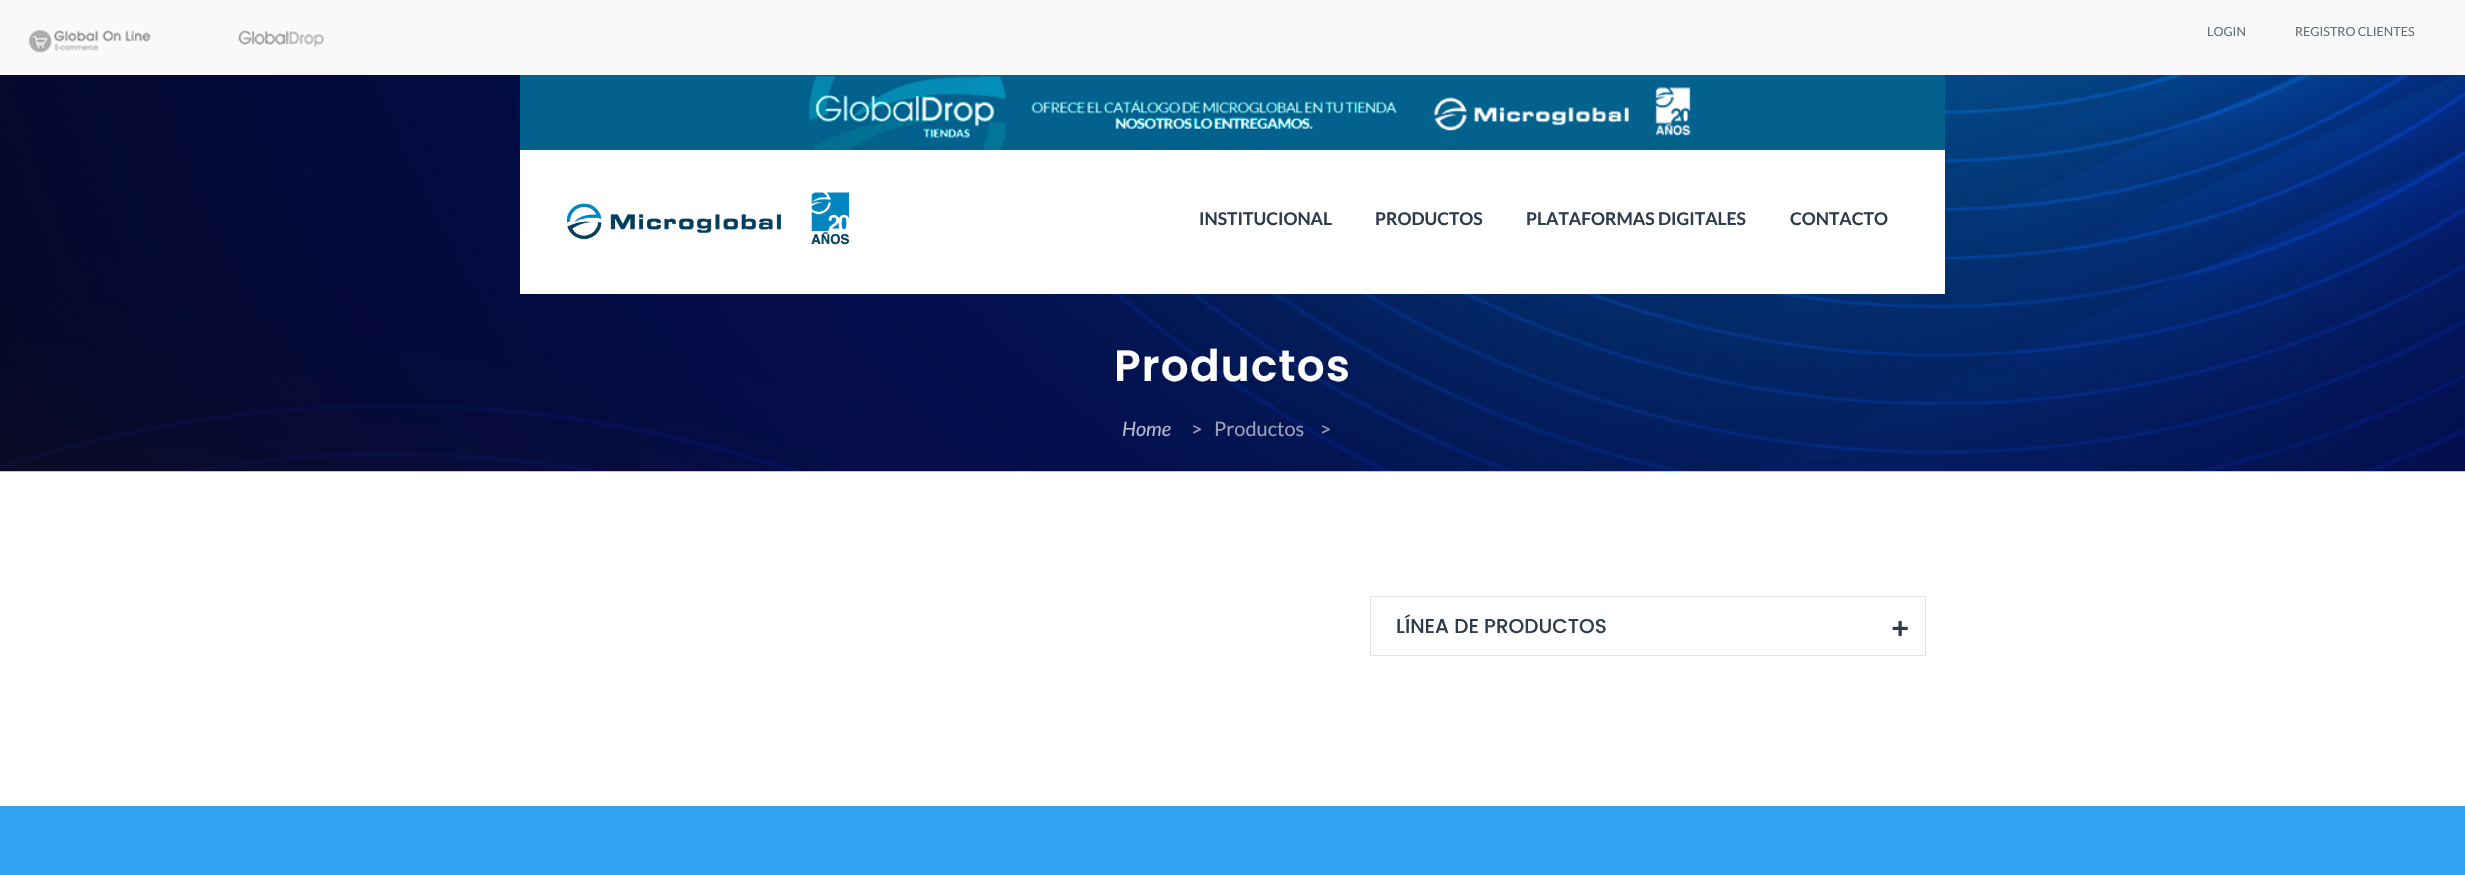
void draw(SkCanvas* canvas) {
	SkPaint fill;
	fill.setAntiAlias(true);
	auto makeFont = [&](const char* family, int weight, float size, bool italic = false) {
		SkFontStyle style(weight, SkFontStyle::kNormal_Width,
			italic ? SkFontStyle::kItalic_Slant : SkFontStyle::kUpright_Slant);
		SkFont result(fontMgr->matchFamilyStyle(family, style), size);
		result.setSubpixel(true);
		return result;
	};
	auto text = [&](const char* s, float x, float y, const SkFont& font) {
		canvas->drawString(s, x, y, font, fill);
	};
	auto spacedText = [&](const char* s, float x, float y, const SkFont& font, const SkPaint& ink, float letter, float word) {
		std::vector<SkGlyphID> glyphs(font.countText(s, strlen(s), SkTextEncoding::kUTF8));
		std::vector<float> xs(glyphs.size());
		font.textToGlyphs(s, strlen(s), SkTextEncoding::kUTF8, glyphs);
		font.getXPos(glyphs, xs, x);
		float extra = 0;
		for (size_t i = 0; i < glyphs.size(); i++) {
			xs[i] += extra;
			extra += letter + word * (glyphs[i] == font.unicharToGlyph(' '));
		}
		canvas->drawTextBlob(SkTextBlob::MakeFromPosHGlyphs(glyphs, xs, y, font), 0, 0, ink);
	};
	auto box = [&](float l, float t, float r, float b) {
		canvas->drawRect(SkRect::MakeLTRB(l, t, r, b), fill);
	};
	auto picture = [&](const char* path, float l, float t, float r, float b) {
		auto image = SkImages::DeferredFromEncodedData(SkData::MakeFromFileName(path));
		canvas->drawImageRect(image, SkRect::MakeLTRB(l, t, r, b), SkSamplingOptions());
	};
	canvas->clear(0xFFFFFFFF);
	picture("image0.png", 0, 75, 2465, 472);
	fill.setColor(0xFFF9F9F9);
	box(0, 0, 2465, 75);
	picture("image1.png", 28, 30, 151, 53);
	picture("image2.png", 238, 30, 325, 47);
	picture("image3.png", 520, 75, 1945, 150);
	fill.setColor(0xFFFFFFFF);
	box(520, 150, 1945, 294);
	picture("image4.png", 567, 192, 850, 245);
	fill.setStyle(SkPaint::kStroke_Style);
	fill.setStrokeWidth(1);
	fill.setColor(0xFFE3E3E3);
	canvas->drawRect(SkRect::MakeLTRB(1370.5f, 596.5f, 1925.5f, 655.5f), fill);
	picture("image5.png", 1892, 620, 1908, 637);
	fill.setStyle(SkPaint::kFill_Style);
	fill.setColor(0xFF32A4F0);
	box(0, 806, 2465, 875);
	auto font1 = makeFont("Lato", 400, 12.5f);
	fill.setColor(0xFF606E78);
	text("LOGIN", 2207, 36, font1);
	text("REGISTRO CLIENTES", 2295, 36, font1);
	auto font2 = makeFont("Lato", 700, 17.5f);
	fill.setColor(0xFF2F3C4D);
	text("INSTITUCIONAL", 1199, 225, font2);
	text("PRODUCTOS", 1375, 225, font2);
	text("PLATAFORMAS DIGITALES", 1526, 225, font2);
	text("CONTACTO", 1790, 225, font2);
	auto font3 = makeFont("Poppins", 600, 43.75f);
	fill.setColor(0xFFFFFFFF);
	spacedText("Productos", 1114, 381, font3, fill, 1.25f, 0);
	auto font4 = makeFont("Lato", 400, 20, true);
	fill.setColor(0xFFB4B8CA);
	text("Home", 1122, 436, font4);
	auto font5 = makeFont("Lato", 400, 20);
	fill.setColor(0xFF9AA1B9);
	text(">", 1191, 436, font5);
	text("Productos    >", 1214, 436, font5);
	auto font6 = makeFont("Poppins", 500, 20);
	fill.setColor(0xFF2F3C4D);
	text("LÍNEA DE PRODUCTOS", 1396, 633, font6);
}
